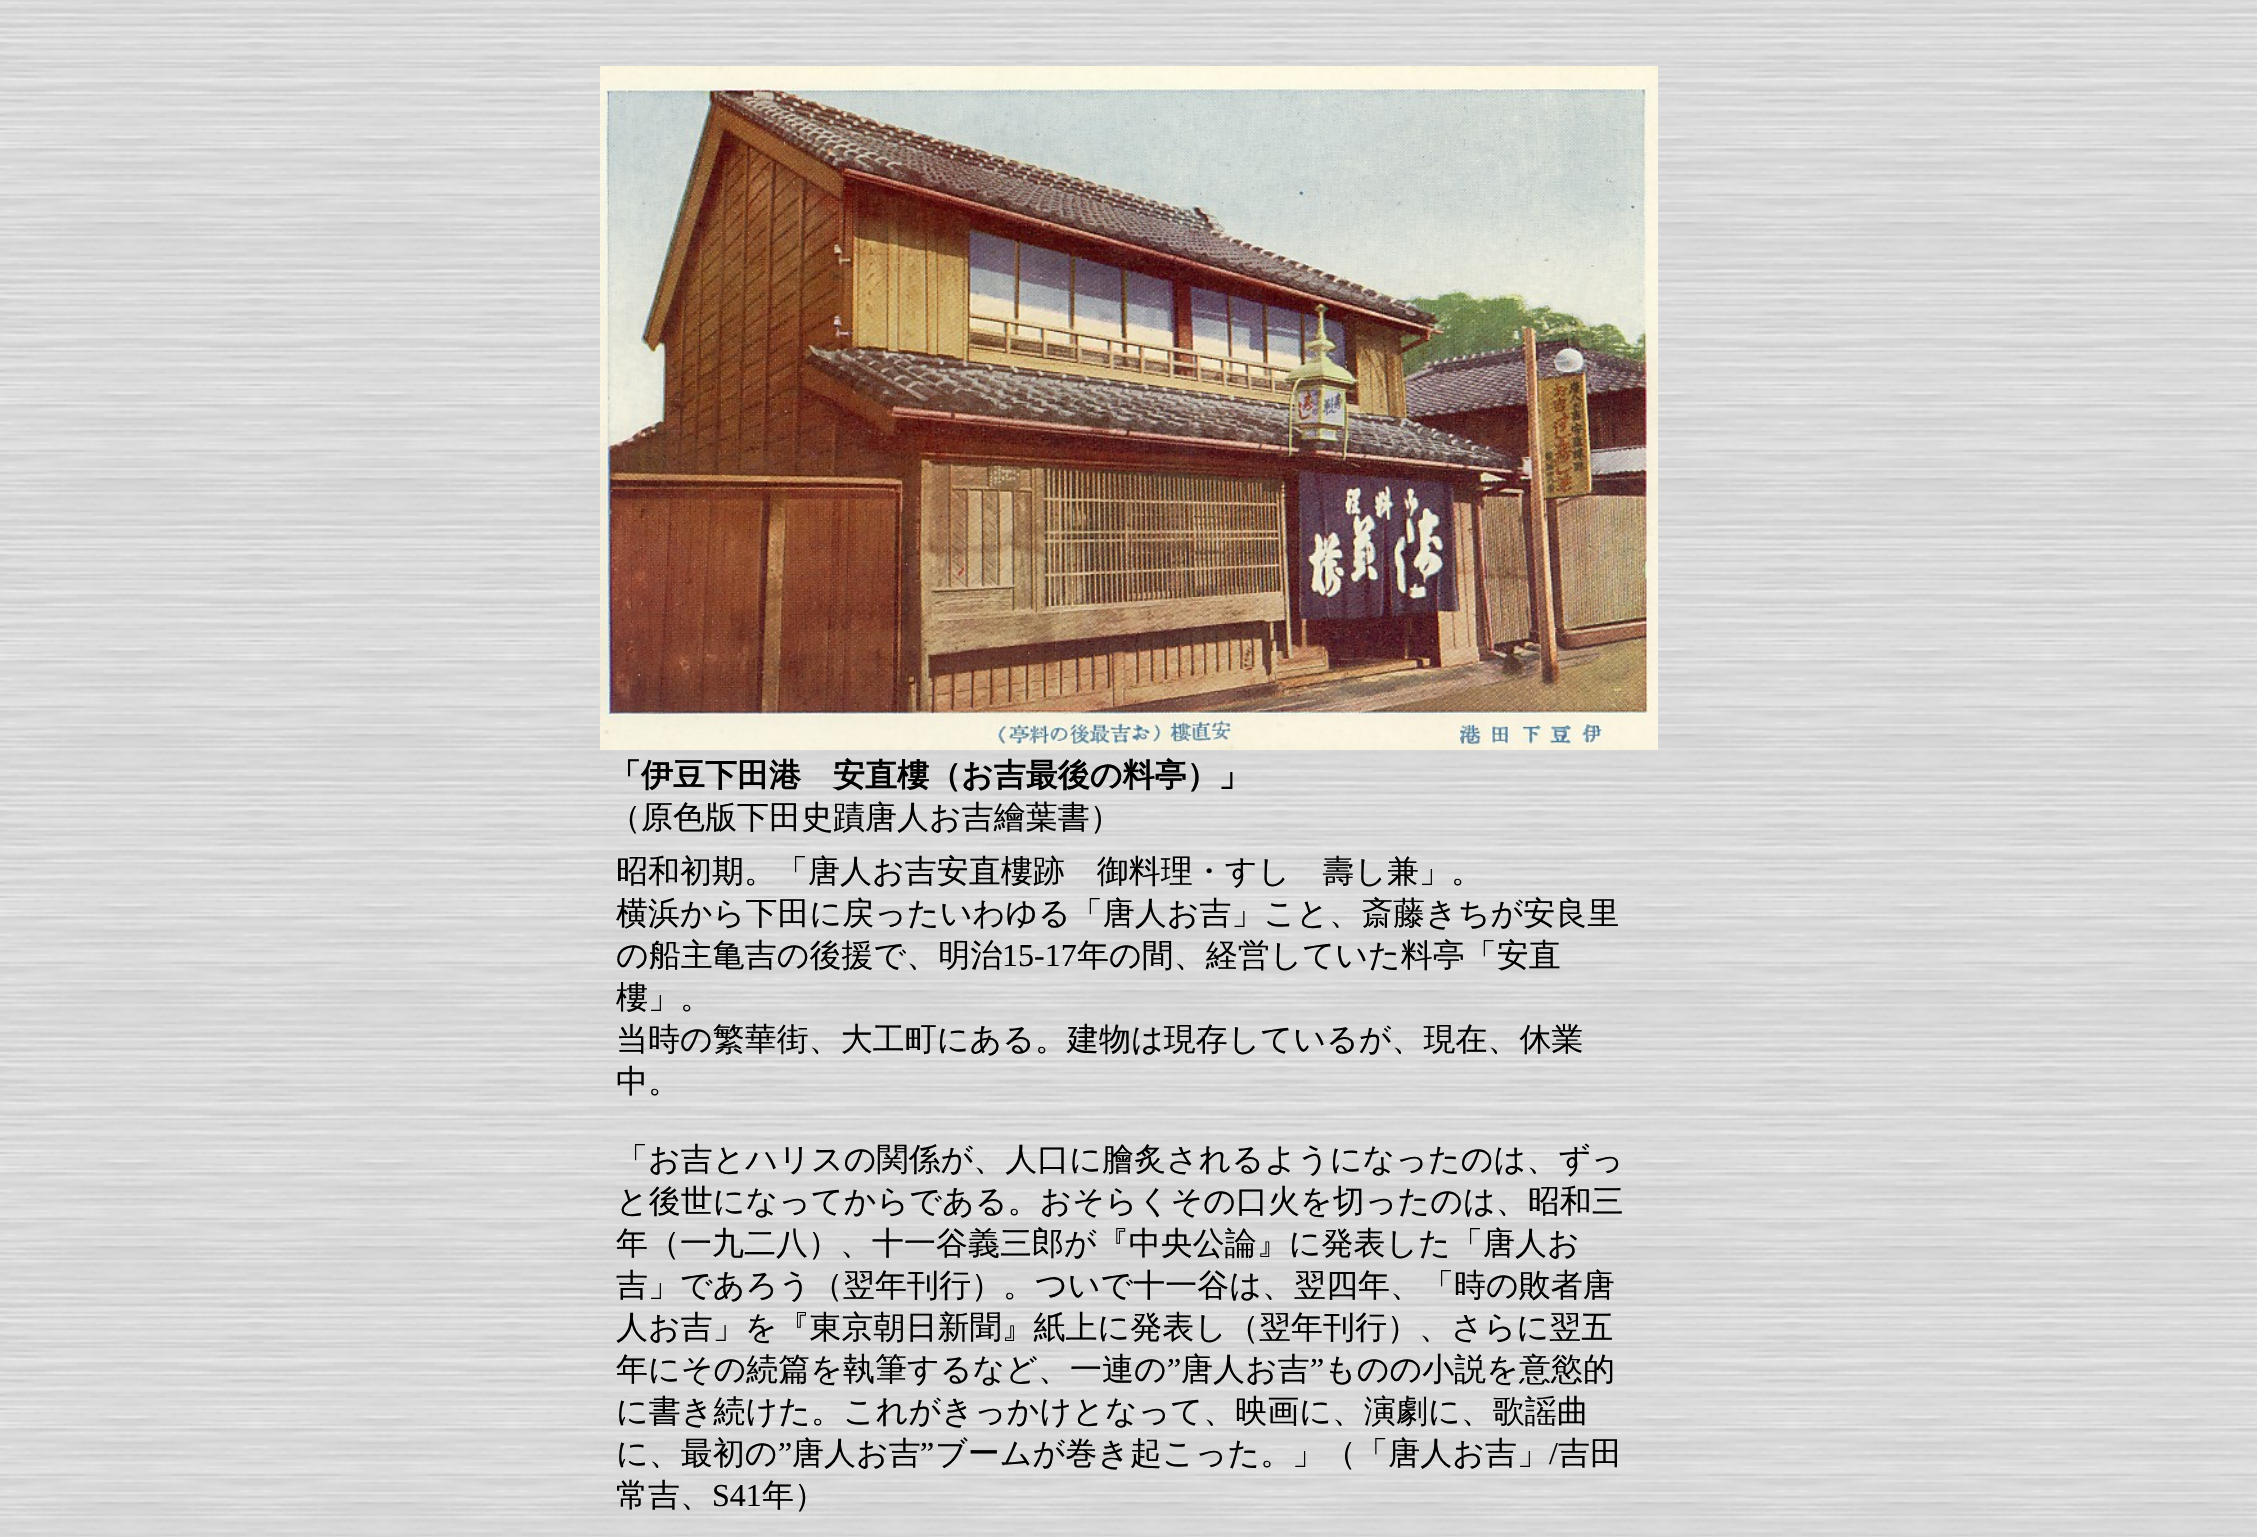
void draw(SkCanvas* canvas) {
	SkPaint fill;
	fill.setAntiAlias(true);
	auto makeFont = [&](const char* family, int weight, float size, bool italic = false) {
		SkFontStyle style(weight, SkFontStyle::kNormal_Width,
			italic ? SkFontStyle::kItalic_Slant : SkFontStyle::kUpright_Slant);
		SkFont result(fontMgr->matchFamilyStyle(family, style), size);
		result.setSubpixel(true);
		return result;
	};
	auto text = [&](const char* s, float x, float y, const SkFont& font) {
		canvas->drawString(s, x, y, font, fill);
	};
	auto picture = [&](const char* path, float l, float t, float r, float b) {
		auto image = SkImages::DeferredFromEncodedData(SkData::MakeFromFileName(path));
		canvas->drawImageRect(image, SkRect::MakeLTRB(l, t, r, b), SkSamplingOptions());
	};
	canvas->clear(0xFFFFFFFF);
	picture("image0.png", 0, 0, 2257, 1537);
	picture("image1.png", 600, 66, 1658, 750);
	auto font1 = makeFont("WenQuanYi Zen Hei", 700, 32);
	fill.setColor(0xFF000000);
	text("「伊豆下田港　安直樓（お吉最後の料亭）」", 609, 786, font1);
	auto font2 = makeFont("WenQuanYi Zen Hei", 500, 32);
	text("（原色版下田史蹟唐人お吉繪葉書）", 609, 828, font2);
	text("昭和初期。「唐人お吉安直樓跡　御料理・すし　壽し兼」。", 616, 882, font2);
	text("横浜から下田に戻ったいわゆる「唐人お吉」こと、斎藤きちが安良里", 616, 924, font2);
	text("の船主亀吉の後援で、明治", 616, 966, font2);
	auto font3 = makeFont("Liberation Serif", 400, 32);
	text("15-17", 1002, 966, font3);
	text("年の間、経営していた料亭「安直", 1077, 966, font2);
	text("樓」。", 616, 1008, font2);
	text("当時の繁華街、大工町にある。建物は現存しているが、現在、休業", 616, 1050, font2);
	text("中。", 616, 1092, font2);
	text("「お吉とハリスの関係が、人口に膾炙されるようになったのは、ずっ", 616, 1170, font2);
	text("と後世になってからである。おそらくその口火を切ったのは、昭和三", 616, 1212, font2);
	text("年（一九二八）、十一谷義三郎が『中央公論』に発表した「唐人お", 616, 1254, font2);
	text("吉」であろう（翌年刊行）。ついで十一谷は、翌四年、「時の敗者唐", 616, 1296, font2);
	text("人お吉」を『東京朝日新聞』紙上に発表し（翌年刊行）、さらに翌五", 616, 1338, font2);
	text("年にその続篇を執筆するなど、一連の", 616, 1380, font2);
	text("”", 1167, 1380, font3);
	text("唐人お吉", 1181, 1380, font2);
	text("”", 1310, 1380, font3);
	text("ものの小説を意慾的", 1324, 1380, font2);
	text("に書き続けた。これがきっかけとなって、映画に、演劇に、歌謡曲", 616, 1422, font2);
	text("に、最初の", 616, 1464, font2);
	text("”", 778, 1464, font3);
	text("唐人お吉", 792, 1464, font2);
	text("”", 920, 1464, font3);
	text("ブームが巻き起こった。」（「唐人お吉」", 935, 1464, font2);
	text("/", 1549, 1464, font3);
	text("吉田", 1558, 1464, font2);
	text("常吉、", 616, 1506, font2);
	text("S41", 712, 1506, font3);
	text("年）", 762, 1506, font2);
}
